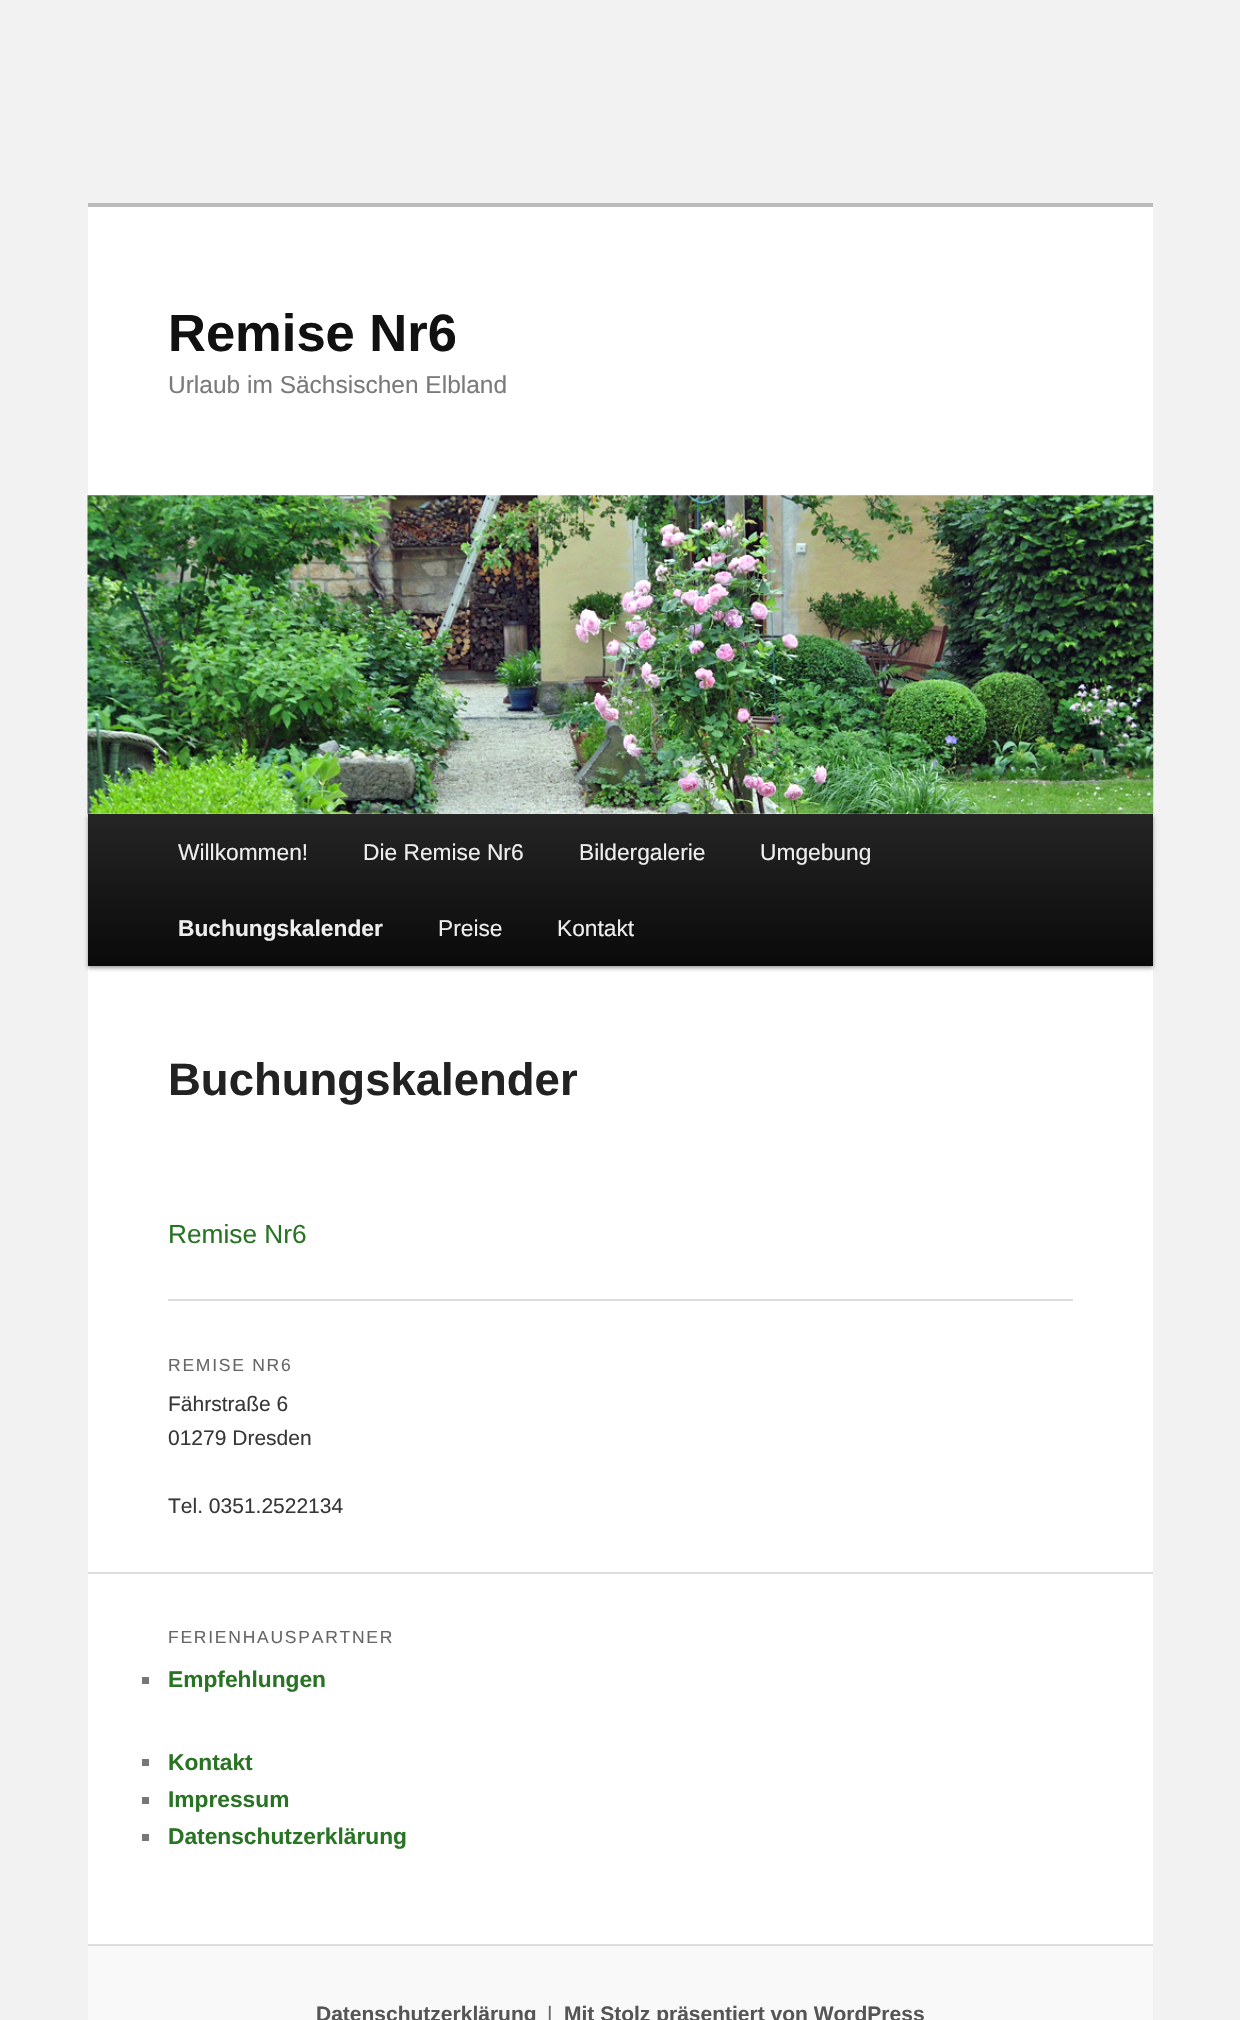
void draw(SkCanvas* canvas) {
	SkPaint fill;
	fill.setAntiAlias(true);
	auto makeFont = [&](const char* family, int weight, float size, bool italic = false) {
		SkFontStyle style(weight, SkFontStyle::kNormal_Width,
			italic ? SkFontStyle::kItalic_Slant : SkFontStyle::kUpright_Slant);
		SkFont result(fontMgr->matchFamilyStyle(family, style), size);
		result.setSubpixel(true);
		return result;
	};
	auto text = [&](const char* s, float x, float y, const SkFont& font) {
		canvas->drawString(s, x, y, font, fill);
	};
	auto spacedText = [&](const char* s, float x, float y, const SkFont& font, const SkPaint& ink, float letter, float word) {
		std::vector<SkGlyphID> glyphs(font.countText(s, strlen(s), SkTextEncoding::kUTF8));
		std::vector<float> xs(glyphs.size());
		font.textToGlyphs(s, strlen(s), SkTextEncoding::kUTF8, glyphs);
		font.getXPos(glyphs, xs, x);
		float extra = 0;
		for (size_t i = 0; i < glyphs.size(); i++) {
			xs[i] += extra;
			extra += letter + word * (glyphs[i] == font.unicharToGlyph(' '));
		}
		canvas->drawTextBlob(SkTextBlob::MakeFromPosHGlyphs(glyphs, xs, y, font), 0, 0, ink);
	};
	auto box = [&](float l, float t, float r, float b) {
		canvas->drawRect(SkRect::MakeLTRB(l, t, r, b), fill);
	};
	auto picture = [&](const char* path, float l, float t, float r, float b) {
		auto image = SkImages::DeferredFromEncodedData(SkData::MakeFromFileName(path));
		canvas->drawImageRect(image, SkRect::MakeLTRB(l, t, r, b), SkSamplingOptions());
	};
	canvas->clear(0xFFF2F2F2);
	fill.setColor(0xFFFFFFFF);
	box(88, 207, 1153, 1944);
	fill.setColor(0xFFBBBBBB);
	box(88, 203, 1153, 207);
	fill.setColor(0x66000000);
	fill.setMaskFilter(SkMaskFilter::MakeBlur(kNormal_SkBlurStyle, 2));
	canvas->drawRect(SkRect::MakeLTRB(88, 816, 1153, 968), fill);
	fill.setMaskFilter(nullptr);
	picture("image0.png", 87, 495, 1154, 814);
	{
		const SkColor colors[] = {0xFF252525, 0xFF0A0A0A};
		const float stops[] = {0, 1};
		const SkPoint ends[] = {{620, 814}, {620, 966}};
		fill.setShader(SkGradientShader::MakeLinear(ends, colors, stops, 2, SkTileMode::kClamp));
		fill.setAlpha(255);
	}
	box(88, 814, 1153, 966);
	fill.setShader(nullptr);
	fill.setColor(0xFFDDDDDD);
	box(168, 1299, 1073, 1301);
	box(88, 1572, 1153, 1574);
	fill.setColor(0xFF777777);
	box(142, 1677, 149, 1684);
	box(142, 1759, 149, 1766);
	box(142, 1797, 149, 1804);
	box(142, 1834, 149, 1841);
	fill.setColor(0xFFF9F9F9);
	box(88, 1946, 1153, 2020);
	fill.setColor(0xFFDDDDDD);
	box(88, 1944, 1153, 1946);
	auto font1 = makeFont("Liberation Sans", 700, 52.5f);
	fill.setColor(0xFF111111);
	text("Remise Nr6", 168, 351, font1);
	auto font2 = makeFont("Liberation Sans", 400, 24.5f);
	fill.setColor(0xFF7A7A7A);
	text("Urlaub im Sächsischen Elbland", 168, 393, font2);
	auto font3 = makeFont("Liberation Sans", 400, 22.75f);
	fill.setColor(0xFFEEEEEE);
	text("Willkommen!", 178, 860, font3);
	text("Die Remise Nr6", 363, 860, font3);
	text("Bildergalerie", 579, 860, font3);
	text("Umgebung", 760, 860, font3);
	auto font4 = makeFont("Liberation Sans", 700, 22.75f);
	text("Buchungskalender", 178, 936, font4);
	text("Preise", 438, 936, font3);
	text("Kontakt", 557, 936, font3);
	auto font5 = makeFont("Liberation Sans", 700, 45.5f);
	fill.setColor(0xFF222222);
	text("Buchungskalender", 168, 1095, font5);
	auto font6 = makeFont("Liberation Sans", 400, 26.25f);
	fill.setColor(0xFF297424);
	text("Remise Nr6", 168, 1243, font6);
	auto font7 = makeFont("Liberation Sans", 400, 17.5f);
	fill.setColor(0xFF666666);
	spacedText("REMISE NR6", 168, 1371, font7, fill, 1.75f, 0);
	auto font8 = makeFont("Liberation Sans", 400, 21);
	fill.setColor(0xFF373737);
	text("Fährstraße 6", 168, 1411, font8);
	text("01279 Dresden", 168, 1445, font8);
	text("Tel. 0351.2522134", 168, 1513, font8);
	fill.setColor(0xFF666666);
	spacedText("FERIENHAUSPARTNER", 168, 1643, font7, fill, 1.75f, 0);
	fill.setColor(0xFF297424);
	text("Empfehlungen", 168, 1687, font4);
	text("Kontakt", 168, 1770, font4);
	text("Impressum", 168, 1807, font4);
	text("Datenschutzerklärung", 168, 1844, font4);
	auto font9 = makeFont("Liberation Sans", 700, 21);
	fill.setColor(0xFF555555);
	text("Datenschutzerklärung", 316, 2021, font9);
	fill.setColor(0xFF666666);
	text("|", 547, 2021, font8);
	fill.setColor(0xFF555555);
	text("Mit Stolz präsentiert von WordPress", 564, 2021, font9);
}
